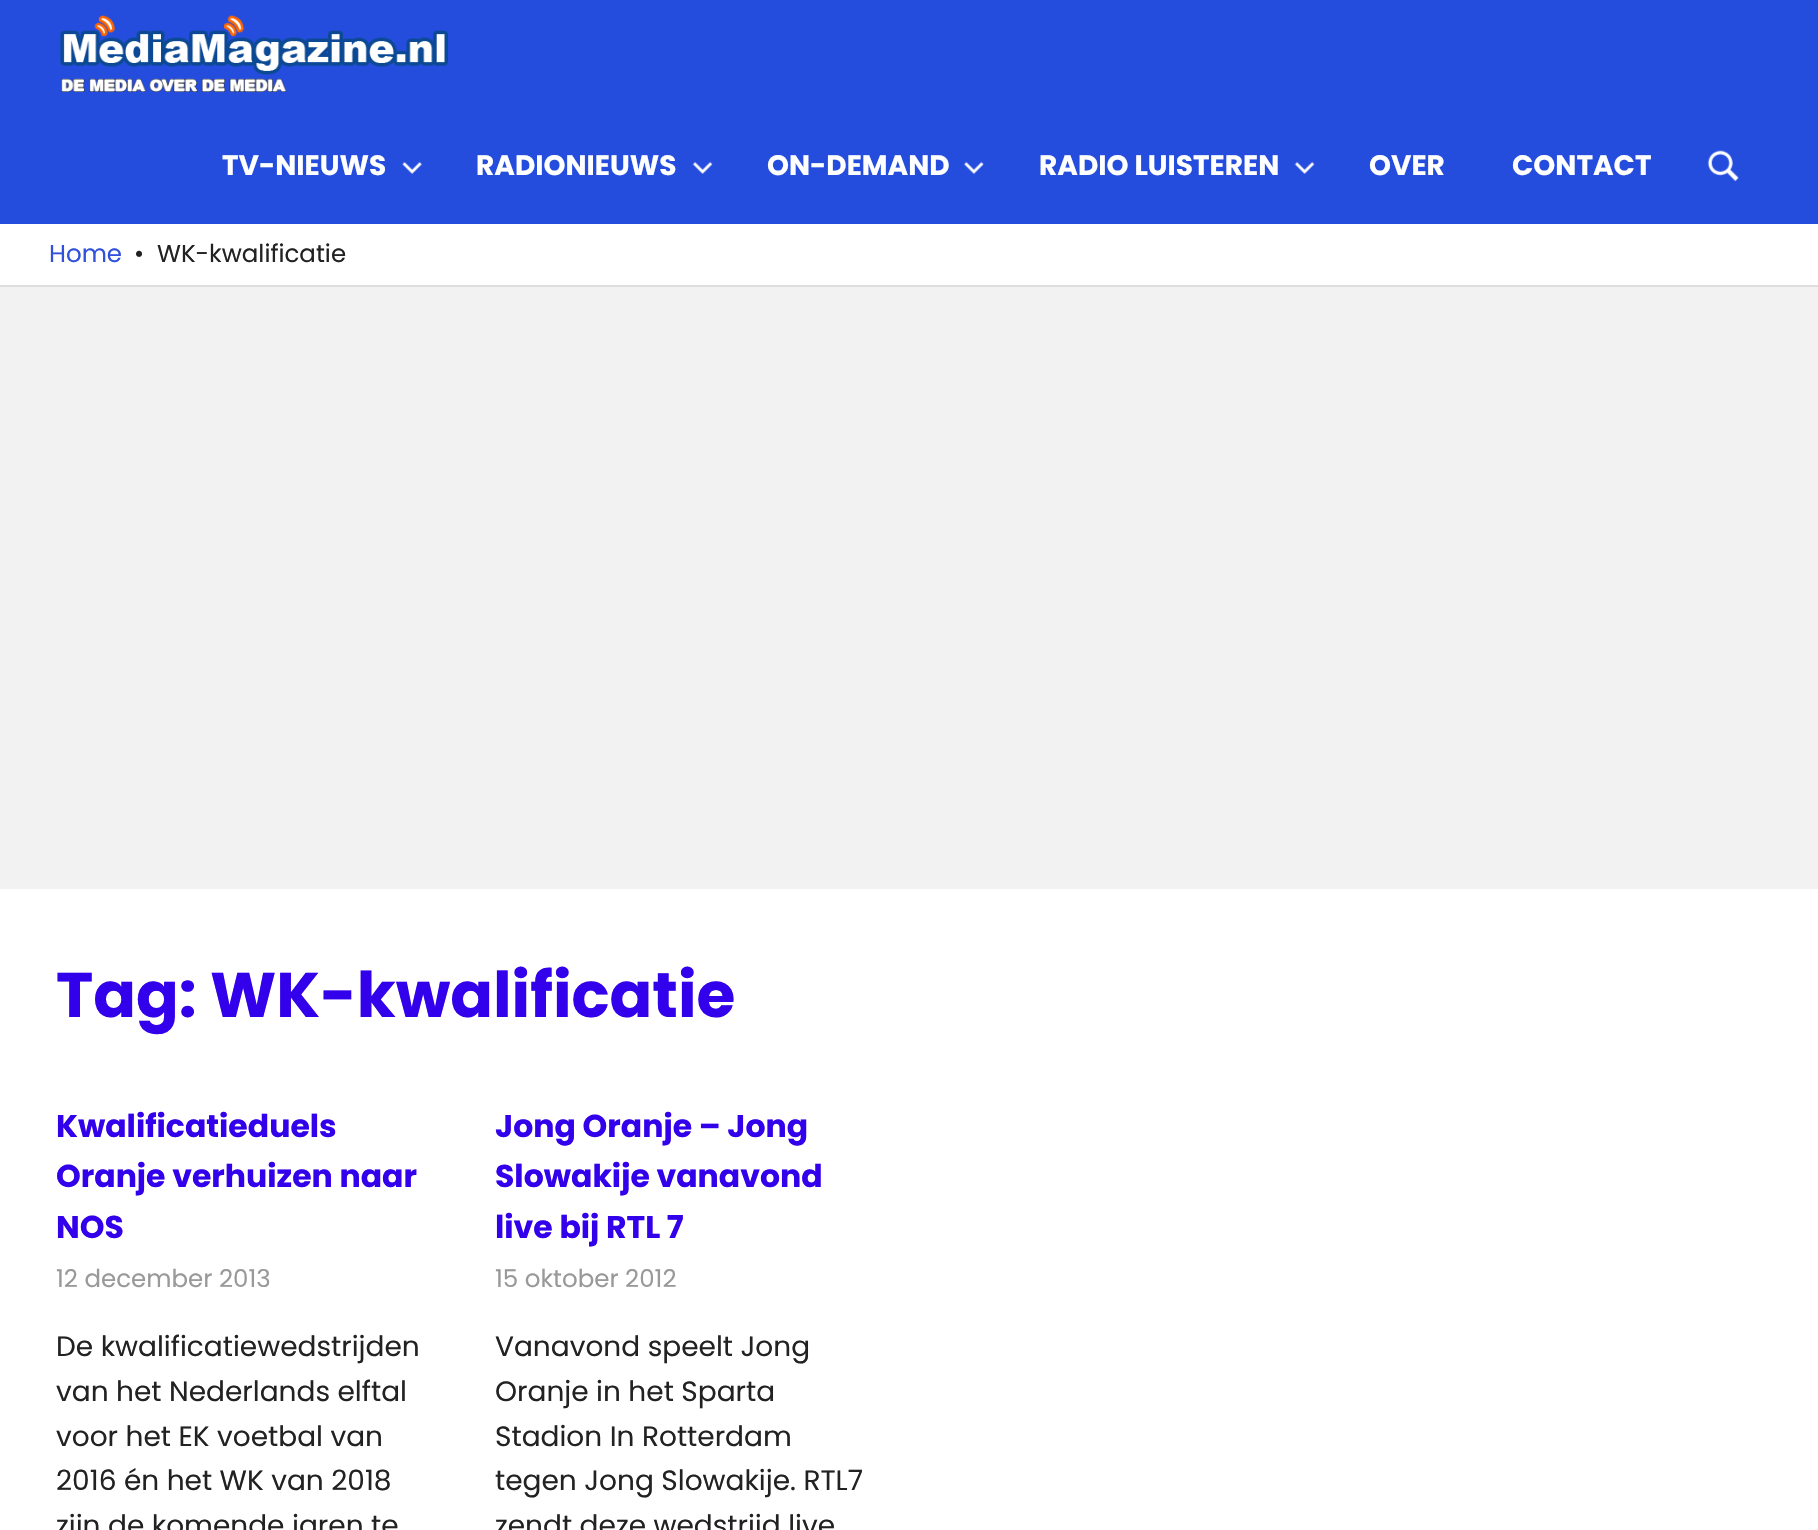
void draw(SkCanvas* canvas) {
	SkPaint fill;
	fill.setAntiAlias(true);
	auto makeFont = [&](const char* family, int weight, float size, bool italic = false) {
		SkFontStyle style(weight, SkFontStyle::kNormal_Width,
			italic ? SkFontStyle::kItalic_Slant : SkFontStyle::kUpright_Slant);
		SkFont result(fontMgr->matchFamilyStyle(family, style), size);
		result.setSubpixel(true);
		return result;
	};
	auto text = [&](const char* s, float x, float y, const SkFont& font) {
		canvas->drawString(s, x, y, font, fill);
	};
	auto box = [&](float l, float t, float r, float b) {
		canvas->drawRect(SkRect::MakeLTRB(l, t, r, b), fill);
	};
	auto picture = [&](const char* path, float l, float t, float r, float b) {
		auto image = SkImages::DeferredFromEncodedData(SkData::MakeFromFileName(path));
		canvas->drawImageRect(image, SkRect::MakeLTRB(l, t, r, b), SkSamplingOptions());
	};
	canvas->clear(0xFFF2F2F2);
	fill.setColor(0xFF254DDD);
	box(0, 0, 1818, 224);
	picture("image0.png", 60, 15, 448, 92);
	picture("image1.png", 402, 161, 422, 174);
	picture("image2.png", 692, 161, 713, 174);
	picture("image3.png", 963, 161, 984, 174);
	picture("image2.png", 1294, 161, 1315, 174);
	picture("image4.png", 1707, 150, 1739, 182);
	fill.setColor(0xFFDDDDDD);
	box(0, 285, 1818, 287);
	fill.setColor(0xFFFFFFFF);
	box(0, 224, 1818, 285);
	box(0, 889, 1818, 1530);
	auto font1 = makeFont("Poppins", 700, 28);
	text("TV-NIEUWS", 222, 175, font1);
	text("RADIONIEUWS", 476, 175, font1);
	text("ON-DEMAND", 767, 175, font1);
	text("RADIO LUISTEREN", 1039, 175, font1);
	text("OVER", 1369, 175, font1);
	text("CONTACT", 1512, 175, font1);
	auto font2 = makeFont("Poppins", 400, 24.5f);
	fill.setColor(0xFF3251DB);
	text("Home", 49, 262, font2);
	fill.setColor(0xFF222222);
	text("•", 134, 262, font2);
	text("WK-kwalificatie", 157, 262, font2);
	auto font3 = makeFont("Poppins", 700, 63);
	fill.setColor(0xFF3200EA);
	text("Tag: WK-kwalificatie", 56, 1017, font3);
	auto font4 = makeFont("Poppins", 700, 31.5f);
	text("Kwalificatieduels", 56, 1137, font4);
	text("Oranje verhuizen naar", 56, 1187, font4);
	text("NOS", 56, 1238, font4);
	fill.setColor(0xFF999999);
	text("12 december 2013", 56, 1287, font2);
	auto font5 = makeFont("Poppins", 400, 28);
	fill.setColor(0xFF222222);
	text("De kwalificatiewedstrijden", 56, 1356, font5);
	text("van het Nederlands elftal", 56, 1401, font5);
	text("voor het EK voetbal van", 56, 1446, font5);
	text("2016 én het WK van 2018", 56, 1490, font5);
	text("zijn de komende jaren te", 56, 1535, font5);
	fill.setColor(0xFF3200EA);
	text("Jong Oranje – Jong", 495, 1137, font4);
	text("Slowakije vanavond", 495, 1187, font4);
	text("live bij RTL 7", 495, 1238, font4);
	fill.setColor(0xFF999999);
	text("15 oktober 2012", 495, 1287, font2);
	fill.setColor(0xFF222222);
	text("Vanavond speelt Jong", 495, 1356, font5);
	text("Oranje in het Sparta", 495, 1401, font5);
	text("Stadion In Rotterdam", 495, 1446, font5);
	text("tegen Jong Slowakije. RTL7", 495, 1490, font5);
	text("zendt deze wedstrijd live", 495, 1535, font5);
}
